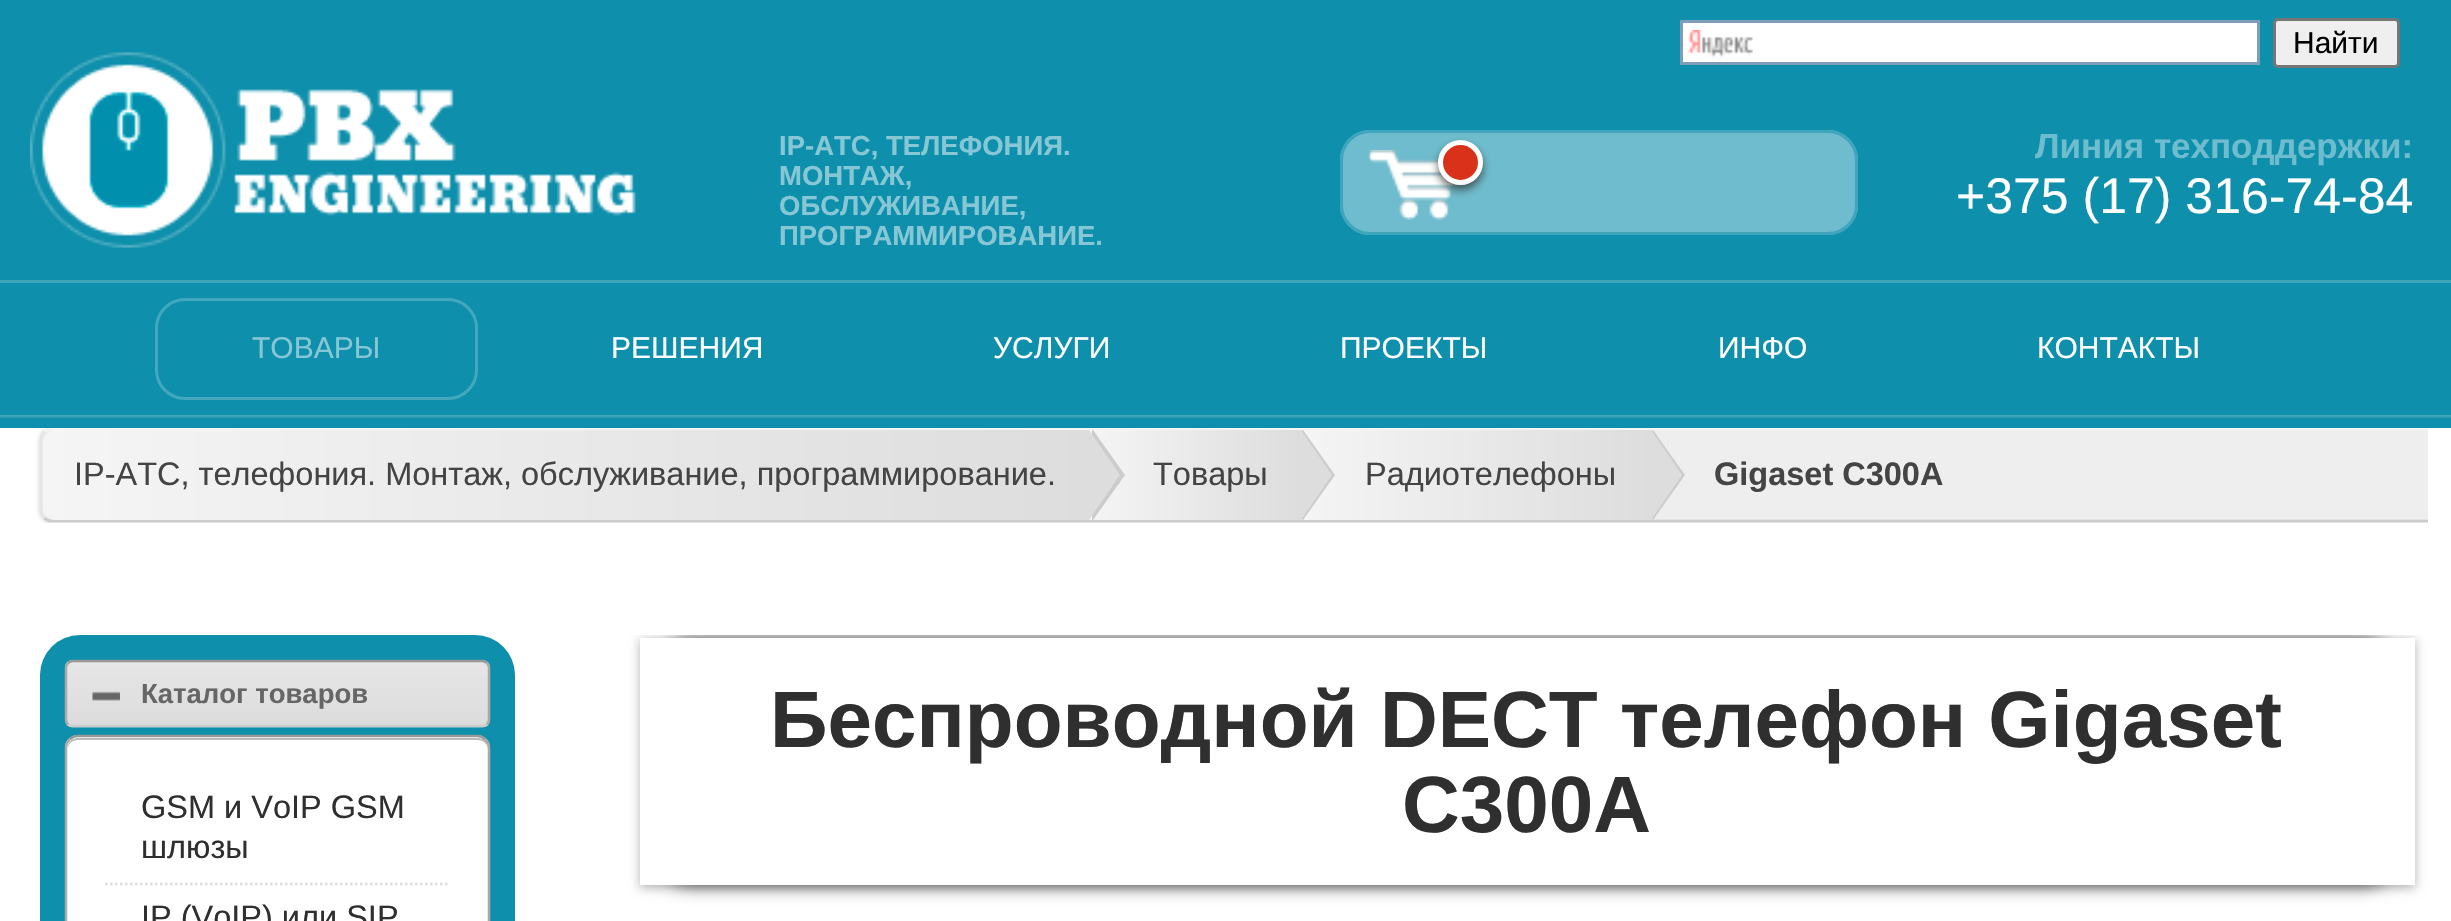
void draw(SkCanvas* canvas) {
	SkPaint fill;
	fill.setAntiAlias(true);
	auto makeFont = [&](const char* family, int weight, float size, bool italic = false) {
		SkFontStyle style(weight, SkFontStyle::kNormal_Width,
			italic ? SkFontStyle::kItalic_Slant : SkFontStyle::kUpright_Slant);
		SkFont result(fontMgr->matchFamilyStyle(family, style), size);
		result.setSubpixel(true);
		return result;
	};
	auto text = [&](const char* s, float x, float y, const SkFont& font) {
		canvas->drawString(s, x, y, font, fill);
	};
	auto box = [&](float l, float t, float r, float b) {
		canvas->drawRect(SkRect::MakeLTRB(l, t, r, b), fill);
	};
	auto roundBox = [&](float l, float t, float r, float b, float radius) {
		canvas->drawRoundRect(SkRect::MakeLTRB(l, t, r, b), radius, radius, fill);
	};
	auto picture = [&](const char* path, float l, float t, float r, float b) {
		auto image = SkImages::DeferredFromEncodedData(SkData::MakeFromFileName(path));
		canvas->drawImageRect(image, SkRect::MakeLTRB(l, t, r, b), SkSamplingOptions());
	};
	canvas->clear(0xFFFFFFFF);
	canvas->save();
	canvas->clipRect(SkRect::MakeLTRB(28, 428, 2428, 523));
	fill.setColor(0x33000000);
	fill.setMaskFilter(SkMaskFilter::MakeBlur(kNormal_SkBlurStyle, 2.5f));
	canvas->drawRoundRect(SkRect::MakeLTRB(40, 428, 2445, 523), 13, 13, fill);
	fill.setMaskFilter(nullptr);
	canvas->restore();
	fill.setColor(0xFF0E8FAB);
	box(0, 0, 2451, 428);
	picture("image0.png", 0, 415, 2451, 419);
	fill.setColor(0xFF3EA5BC);
	box(0, 280, 2451, 283);
	fill.setColor(0xFFFFFFFF);
	box(1683, 23, 2257, 62);
	picture("image1.png", 1687, 30, 1753, 58);
	fill.setStyle(SkPaint::kStroke_Style);
	fill.setStrokeWidth(3);
	fill.setColor(0xFF7F9DB9);
	canvas->drawRect(SkRect::MakeLTRB(1681.5f, 21.5f, 2258.5f, 63.5f), fill);
	fill.setStyle(SkPaint::kFill_Style);
	fill.setColor(0xFFEFEFEF);
	canvas->drawRoundRect(SkRect::MakeLTRB(2274.5f, 19.5f, 2398.5f, 66.5f), 3.5f, 3.5f, fill);
	fill.setStyle(SkPaint::kStroke_Style);
	fill.setColor(0xFF767676);
	canvas->drawRoundRect(SkRect::MakeLTRB(2274.5f, 19.5f, 2398.5f, 66.5f), 3.5f, 3.5f, fill);
	picture("image2.png", 30, 52, 636, 248);
	fill.setStyle(SkPaint::kFill_Style);
	fill.setColor(0xFF6EBCCD);
	roundBox(1340, 130, 1858, 235, 30);
	picture("image3.png", 1367, 150, 1456, 220);
	fill.setStyle(SkPaint::kStroke_Style);
	fill.setColor(0xFF3EA5BC);
	canvas->drawRoundRect(SkRect::MakeLTRB(1341.5f, 131.5f, 1856.5f, 233.5f), 28.5f, 28.5f, fill);
	fill.setStyle(SkPaint::kFill_Style);
	fill.setColor(0xBF323232);
	fill.setMaskFilter(SkMaskFilter::MakeBlur(kNormal_SkBlurStyle, 4));
	canvas->drawRoundRect(SkRect::MakeLTRB(1438, 145, 1483, 190), 22.5f, 22.5f, fill);
	fill.setMaskFilter(nullptr);
	fill.setColor(0xFFD9311A);
	canvas->drawCircle(1460.5f, 162.5f, 20, fill);
	fill.setStyle(SkPaint::kStroke_Style);
	fill.setStrokeWidth(5);
	fill.setColor(0xFFFFFFFF);
	canvas->drawCircle(1460.5f, 162.5f, 20, fill);
	fill.setStrokeWidth(3);
	fill.setColor(0xFF43A8BD);
	canvas->drawRoundRect(SkRect::MakeLTRB(156.5f, 299.5f, 476.5f, 398.5f), 28.5f, 28.5f, fill);
	fill.setStyle(SkPaint::kFill_Style);
	fill.setColor(0xFFEEEEEE);
	canvas->drawPath(SkPathBuilder().moveTo(53, 428).lineTo(2428, 428).lineTo(2428, 523).lineTo(53, 523).cubicTo(46, 523, 40, 517, 40, 510).lineTo(40, 441).cubicTo(40, 434, 46, 428, 53, 428).close().detach(), fill);
	canvas->save();
	canvas->clipRect(SkRect::MakeLTRB(28, 428, 2428, 523));
	fill.setStyle(SkPaint::kStroke_Style);
	fill.setStrokeWidth(2.5f);
	fill.setColor(0xFFF5F5F5);
	canvas->drawPath(SkPathBuilder().moveTo(44.5f, 432).cubicTo(46.5f, 430, 49.5f, 429, 52.5f, 429).lineTo(2432.5f, 429).cubicTo(2435.5f, 429, 2438.5f, 430, 2440.5f, 432).detach(), fill);
	fill.setColor(0xFFCCCCCC);
	canvas->drawPath(SkPathBuilder().moveTo(2440.5f, 518).cubicTo(2438.5f, 520, 2435.5f, 521, 2432.5f, 521).lineTo(52.5f, 521).cubicTo(49.5f, 521, 46.5f, 520, 44.5f, 518).detach(), fill);
	canvas->restore();
	fill.setColor(0xFFE5E5E5);
	canvas->drawPath(SkPathBuilder().moveTo(44.5f, 518).cubicTo(42.5f, 516, 41, 513, 41, 510).lineTo(41, 440).cubicTo(41, 437, 42.5f, 434, 44.5f, 432).detach(), fill);
	fill.setStyle(SkPaint::kFill_Style);
	{
		const SkColor colors[] = {0xFFF5F5F5, 0xFFDDDDDD};
		const float stops[] = {0, 1};
		const SkPoint ends[] = {{43, 475}, {1088, 475}};
		fill.setShader(SkGradientShader::MakeLinear(ends, colors, stops, 2, SkTileMode::kClamp));
		fill.setAlpha(255);
	}
	canvas->drawPath(SkPathBuilder().moveTo(56, 430).lineTo(1088, 430).lineTo(1088, 520).lineTo(56, 520).cubicTo(49, 520, 43, 514, 43, 507).lineTo(43, 443).cubicTo(43, 436, 49, 430, 56, 430).close().detach(), fill);
	{
		const SkColor colors[] = {0xFFF5F5F5, 0xFFDDDDDD};
		const float stops[] = {0, 1};
		const SkPoint ends[] = {{1088, 475}, {1300, 475}};
		fill.setShader(SkGradientShader::MakeLinear(ends, colors, stops, 2, SkTileMode::kClamp));
		fill.setAlpha(255);
	}
	box(1089, 430, 1300, 520);
	fill.setShader(nullptr);
	fill.setColor(0xFFCCCCCC);
	canvas->drawPath(SkPathBuilder().moveTo(1093, 430).lineTo(1125, 475).lineTo(1093, 520).lineTo(1092, 520).lineTo(1092, 430).close().detach(), fill);
	fill.setColor(0xFFDDDDDD);
	canvas->drawPath(SkPathBuilder().moveTo(1089, 430).lineTo(1120, 475).lineTo(1089, 520).lineTo(1088, 520).lineTo(1088, 430).close().detach(), fill);
	{
		const SkColor colors[] = {0xFFF5F5F5, 0xFFDDDDDD};
		const float stops[] = {0, 1};
		const SkPoint ends[] = {{1300, 475}, {1650, 475}};
		fill.setShader(SkGradientShader::MakeLinear(ends, colors, stops, 2, SkTileMode::kClamp));
		fill.setAlpha(255);
	}
	box(1301, 430, 1650, 520);
	fill.setShader(nullptr);
	fill.setColor(0xFFCCCCCC);
	canvas->drawPath(SkPathBuilder().moveTo(1303, 430).lineTo(1335, 475).lineTo(1303, 520).lineTo(1302, 520).lineTo(1302, 430).close().detach(), fill);
	fill.setColor(0xFFDDDDDD);
	canvas->drawPath(SkPathBuilder().moveTo(1301, 430).lineTo(1332, 475).lineTo(1301, 520).lineTo(1300, 520).lineTo(1300, 430).close().detach(), fill);
	fill.setColor(0xFFCCCCCC);
	canvas->drawPath(SkPathBuilder().moveTo(1653, 430).lineTo(1685, 475).lineTo(1653, 520).lineTo(1652, 520).lineTo(1652, 430).close().detach(), fill);
	fill.setColor(0xFFDDDDDD);
	canvas->drawPath(SkPathBuilder().moveTo(1651, 430).lineTo(1682, 475).lineTo(1651, 520).lineTo(1650, 520).lineTo(1650, 430).close().detach(), fill);
	fill.setColor(0xFF0E8FAB);
	roundBox(40, 635, 515, 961, 40);
	picture("image4.png", 65, 660, 490, 728);
	fill.setStyle(SkPaint::kStroke_Style);
	fill.setColor(0xFF999999);
	canvas->drawPath(SkPathBuilder().moveTo(68, 663).cubicTo(69.5f, 662, 71, 661, 72.5f, 661).lineTo(482.5f, 661).cubicTo(484, 661, 485.5f, 662, 487, 663).detach(), fill);
	fill.setColor(0xFFAAAAAA);
	canvas->drawPath(SkPathBuilder().moveTo(487, 663).cubicTo(488, 664.5f, 489, 666, 489, 667.5f).lineTo(489, 720).cubicTo(489, 721.5f, 488, 723, 487, 724.5f).detach(), fill);
	fill.setColor(0xFFCCCCCC);
	canvas->drawPath(SkPathBuilder().moveTo(487, 724.5f).cubicTo(485.5f, 725.5f, 484, 726, 482.5f, 726).lineTo(72.5f, 726).cubicTo(71, 726, 69.5f, 725.5f, 68, 724.5f).detach(), fill);
	fill.setColor(0xFFAAAAAA);
	canvas->drawPath(SkPathBuilder().moveTo(68, 724.5f).cubicTo(67, 723, 66, 721.5f, 66, 720).lineTo(66, 667.5f).cubicTo(66, 666, 67, 664.5f, 68, 663).detach(), fill);
	picture("image5.png", 92, 691, 120, 701);
	fill.setStyle(SkPaint::kFill_Style);
	fill.setColor(0xFFFFFFFF);
	roundBox(65, 735, 490, 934, 13);
	fill.setColor(0xFFBBBBBB);
	canvas->drawPath(SkPathBuilder().moveTo(78, 740).lineTo(478, 740).cubicTo(483, 740, 488, 744, 488, 750).lineTo(488, 748).cubicTo(488, 742, 484, 738, 478, 738).lineTo(78, 738).cubicTo(72, 738, 68, 742, 68, 748).lineTo(68, 750).cubicTo(68, 744, 72, 740, 78, 740).close().detach(), fill);
	fill.setStyle(SkPaint::kStroke_Style);
	fill.setColor(0xFF999999);
	canvas->drawPath(SkPathBuilder().moveTo(69.5f, 739.5f).cubicTo(71.5f, 737.5f, 74.5f, 736, 77.5f, 736).lineTo(477.5f, 736).cubicTo(480.5f, 736, 483.5f, 737.5f, 485.5f, 739.5f).detach(), fill);
	fill.setColor(0xFFAAAAAA);
	canvas->drawPath(SkPathBuilder().moveTo(485.5f, 739.5f).cubicTo(487.5f, 741.5f, 489, 744.5f, 489, 747.5f).lineTo(489, 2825).cubicTo(489, 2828, 487.5f, 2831, 485.5f, 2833).detach(), fill);
	canvas->drawPath(SkPathBuilder().moveTo(69.5f, 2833).cubicTo(67.5f, 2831, 66, 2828, 66, 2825).lineTo(66, 747.5f).cubicTo(66, 744.5f, 67.5f, 741.5f, 69.5f, 739.5f).detach(), fill);
	fill.setColor(0xFFDDDDDD);
	fill.setPathEffect(SkDashPathEffect::Make({{2.5f, 2.5f}}, 0));
	canvas->drawPath(SkPathBuilder().moveTo(105, 884).lineTo(450, 884).detach(), fill);
	fill.setPathEffect(nullptr);
	canvas->save();
	canvas->clipRect(SkRect::MakeLTRB(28, 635, 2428, 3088));
	fill.setStyle(SkPaint::kFill_Style);
	fill.setColor(0x4D000000);
	fill.setMaskFilter(SkMaskFilter::MakeBlur(kNormal_SkBlurStyle, 5));
	canvas->drawRect(SkRect::MakeLTRB(640, 640, 2415, 888), fill);
	fill.setMaskFilter(nullptr);
	fill.setColor(0x99000000);
	fill.setMaskFilter(SkMaskFilter::MakeBlur(kNormal_SkBlurStyle, 9));
	canvas->drawRoundRect(SkRect::MakeLTRB(665, 638, 2390, 885), 25, 25, fill);
	fill.setMaskFilter(nullptr);
	canvas->restore();
	fill.setColor(0xFFFFFFFF);
	box(640, 638, 2415, 885);
	auto font1 = makeFont("Liberation Sans", 400, 30);
	fill.setColor(0xFF000000);
	text("Найти", 2293, 53, font1);
	auto font2 = makeFont("Liberation Sans", 700, 27.5f);
	fill.setColor(0xFF87C7D5);
	text("IP-АТС, ТЕЛЕФОНИЯ.", 779, 155, font2);
	text("МОНТАЖ,", 779, 185, font2);
	text("ОБСЛУЖИВАНИЕ,", 779, 215, font2);
	text("ПРОГРАММИРОВАНИЕ.", 779, 245, font2);
	auto font3 = makeFont("Liberation Sans", 700, 35);
	fill.setColor(0xFF6EBCCD);
	text("Линия техподдержки:", 2035, 158, font3);
	auto font4 = makeFont("Liberation Sans", 400, 50);
	fill.setColor(0xFFFFFFFF);
	text("+375 (17) 316-74-84", 1956, 213, font4);
	fill.setColor(0xFF87C7D5);
	text("ТОВАРЫ", 252, 358, font1);
	fill.setColor(0xFFFFFFFF);
	text("РЕШЕНИЯ", 611, 358, font1);
	text("УСЛУГИ", 993, 358, font1);
	text("ПРОЕКТЫ", 1340, 358, font1);
	text("ИНФО", 1718, 358, font1);
	text("КОНТАКТЫ", 2037, 358, font1);
	auto font5 = makeFont("Liberation Sans", 400, 32.5f);
	fill.setColor(0xFF444444);
	text("IP-АТС, телефония. Монтаж, обслуживание, программирование.", 74, 485, font5);
	text("Товары", 1153, 485, font5);
	text("Радиотелефоны", 1365, 485, font5);
	auto font6 = makeFont("Liberation Sans", 700, 32.5f);
	text("Gigaset C300A", 1714, 485, font6);
	fill.setColor(0xFF666666);
	text("Каталог товаров", 141, 703, font2);
	fill.setColor(0xFF2F2F2F);
	text("GSM и VoIP GSM", 141, 818, font5);
	text("шлюзы", 141, 858, font5);
	text("IP (VoIP) или SIP", 141, 928, font5);
	auto font7 = makeFont("Liberation Sans", 700, 80);
	text("Беспроводной DECT телефон Gigaset", 770, 747, font7);
	text("C300A", 1402, 832, font7);
}
